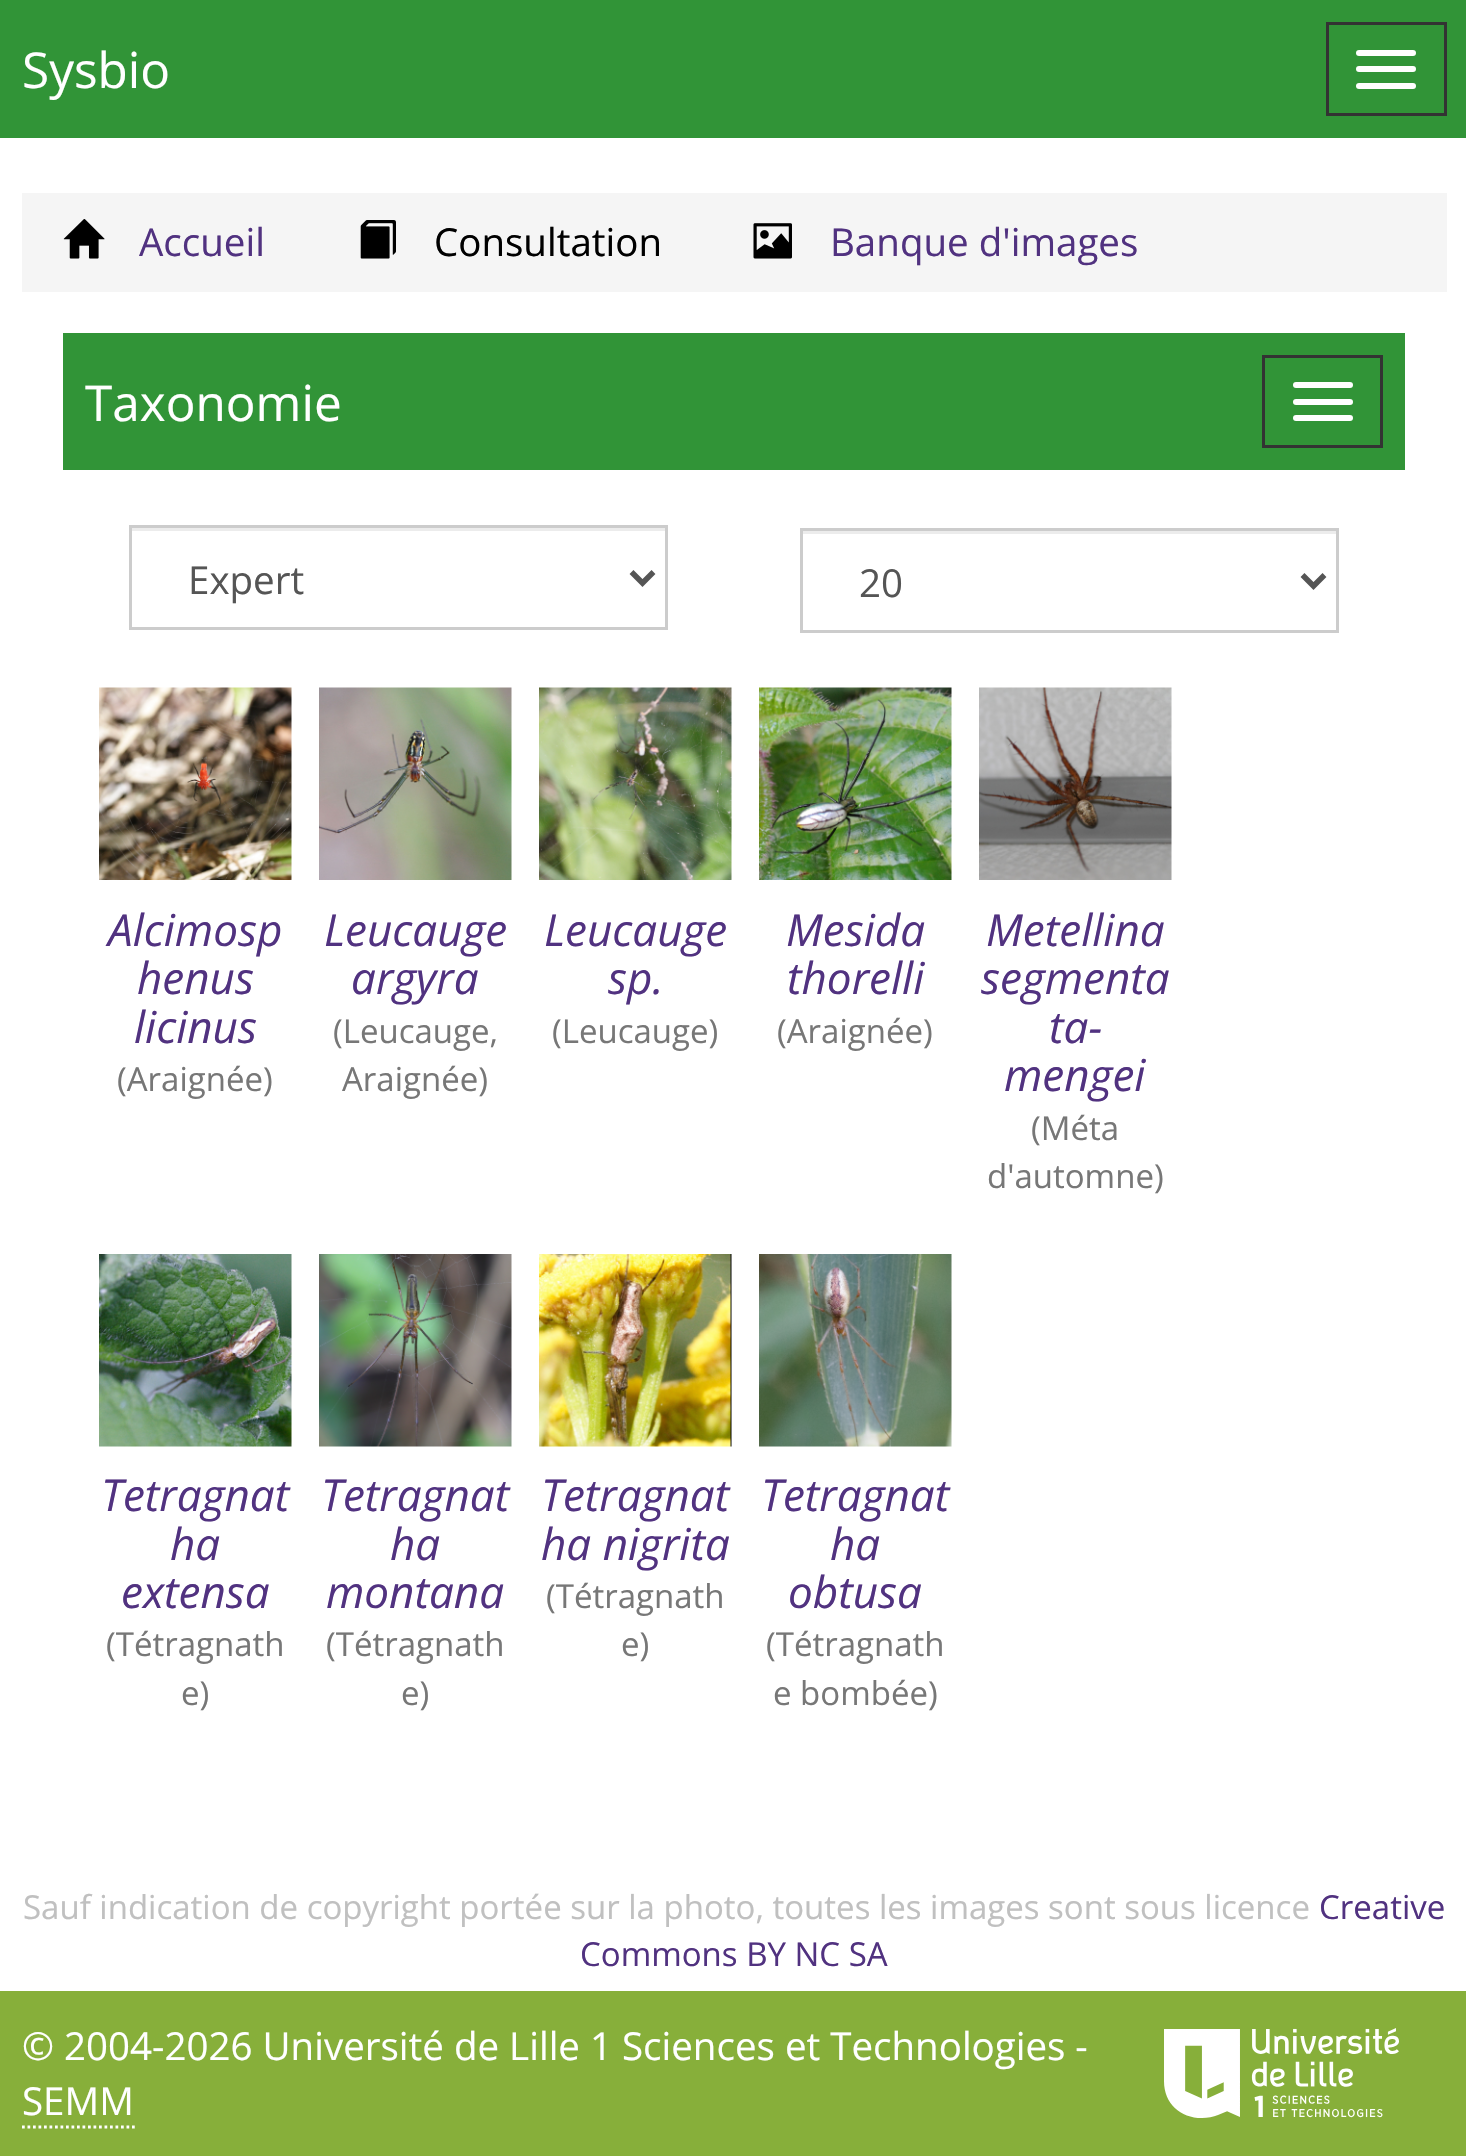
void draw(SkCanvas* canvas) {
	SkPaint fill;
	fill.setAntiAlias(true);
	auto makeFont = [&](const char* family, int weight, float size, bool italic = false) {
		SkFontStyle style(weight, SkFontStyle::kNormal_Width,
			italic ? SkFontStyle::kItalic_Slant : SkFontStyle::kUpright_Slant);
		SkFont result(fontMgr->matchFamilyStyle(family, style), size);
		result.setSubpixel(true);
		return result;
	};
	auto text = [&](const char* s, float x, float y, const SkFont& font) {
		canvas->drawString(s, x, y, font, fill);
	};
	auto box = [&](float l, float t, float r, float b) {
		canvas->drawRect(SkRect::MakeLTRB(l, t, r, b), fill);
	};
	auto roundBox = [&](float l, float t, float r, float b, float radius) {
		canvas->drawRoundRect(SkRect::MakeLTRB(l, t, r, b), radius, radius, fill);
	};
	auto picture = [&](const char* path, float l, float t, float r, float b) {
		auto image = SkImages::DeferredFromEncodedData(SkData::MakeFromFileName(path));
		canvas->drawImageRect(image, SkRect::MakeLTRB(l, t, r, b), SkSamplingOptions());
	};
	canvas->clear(0xFFFFFFFF);
	fill.setColor(0xFF319437);
	box(0, 0, 1466, 138);
	fill.setStyle(SkPaint::kStroke_Style);
	fill.setStrokeWidth(3);
	fill.setColor(0xFF333333);
	canvas->drawRect(SkRect::MakeLTRB(1327.5f, 23.5f, 1445.5f, 114.5f), fill);
	fill.setStyle(SkPaint::kFill_Style);
	fill.setColor(0xFFFFFFFF);
	roundBox(1356, 50, 1416, 56, 3);
	roundBox(1356, 66, 1416, 72, 3);
	roundBox(1356, 83, 1416, 89, 3);
	fill.setColor(0xFFF5F5F5);
	box(22, 193, 1447, 292);
	picture("image0.png", 63, 219, 105, 259);
	picture("image1.png", 360, 220, 396, 259);
	picture("image2.png", 753, 223, 792, 259);
	fill.setColor(0xFF319437);
	box(63, 333, 1405, 470);
	fill.setStyle(SkPaint::kStroke_Style);
	fill.setColor(0xFF333333);
	canvas->drawRect(SkRect::MakeLTRB(1263.5f, 356.5f, 1381.5f, 446.5f), fill);
	fill.setStyle(SkPaint::kFill_Style);
	fill.setColor(0xFFFFFFFF);
	roundBox(1293, 382, 1353, 388, 3);
	roundBox(1293, 399, 1353, 405, 3);
	roundBox(1293, 415, 1353, 421, 3);
	fill.setColor(0xFFECECEC);
	box(132, 528, 666, 531);
	fill.setStyle(SkPaint::kStroke_Style);
	fill.setColor(0xFFCCCCCC);
	canvas->drawRect(SkRect::MakeLTRB(130.5f, 526.5f, 666.5f, 628.5f), fill);
	fill.setStrokeWidth(5.5f);
	fill.setColor(0xFF555555);
	canvas->drawPath(SkPathBuilder().moveTo(631.5f, 572).lineTo(642.5f, 583).lineTo(653.5f, 572).detach(), fill);
	fill.setStyle(SkPaint::kFill_Style);
	fill.setColor(0xFFECECEC);
	box(803, 531, 1337, 534);
	fill.setStyle(SkPaint::kStroke_Style);
	fill.setStrokeWidth(3);
	fill.setColor(0xFFCCCCCC);
	canvas->drawRect(SkRect::MakeLTRB(801.5f, 529.5f, 1337.5f, 631.5f), fill);
	fill.setStrokeWidth(5.5f);
	fill.setColor(0xFF555555);
	canvas->drawPath(SkPathBuilder().moveTo(1302.5f, 575).lineTo(1313.5f, 586).lineTo(1324.5f, 575).detach(), fill);
	picture("image3.png", 99, 687, 292, 880);
	picture("image4.png", 319, 687, 512, 880);
	picture("image5.png", 539, 687, 732, 880);
	picture("image6.png", 759, 687, 952, 880);
	picture("image7.png", 979, 687, 1172, 880);
	picture("image8.png", 99, 1254, 292, 1447);
	picture("image9.png", 319, 1254, 512, 1447);
	picture("image10.png", 539, 1254, 732, 1447);
	picture("image11.png", 759, 1254, 952, 1447);
	fill.setStyle(SkPaint::kFill_Style);
	fill.setColor(0xFF87AF3A);
	box(0, 1991, 1466, 2156);
	fill.setStyle(SkPaint::kStroke_Style);
	fill.setStrokeWidth(2.8f);
	fill.setColor(0xFFFFFFFF);
	fill.setPathEffect(SkDashPathEffect::Make({{2.75f, 2.75f}}, 0));
	canvas->drawPath(SkPathBuilder().moveTo(22, 2127).lineTo(135, 2127).detach(), fill);
	fill.setPathEffect(nullptr);
	picture("image12.png", 1164, 2028, 1399, 2118);
	auto font1 = makeFont("Open Sans", 400, 49.5f);
	fill.setStyle(SkPaint::kFill_Style);
	text("Sysbio", 22, 88, font1);
	auto font2 = makeFont("Open Sans", 400, 38.5f);
	fill.setColor(0xFF513280);
	text("Accueil", 139, 256, font2);
	fill.setColor(0xFF000000);
	text("Consultation", 434, 256, font2);
	fill.setColor(0xFF513280);
	text("Banque d'images", 830, 256, font2);
	fill.setColor(0xFFFFFFFF);
	text("Taxonomie", 85, 421, font1);
	fill.setColor(0xFF555555);
	text("Expert", 188, 594, font2);
	text("20", 859, 597, font2);
	auto font3 = makeFont("Open Sans", 400, 44, true);
	fill.setColor(0xFF513280);
	text("Alcimosp", 108, 946, font3);
	text("henus", 137, 994, font3);
	text("licinus", 134, 1043, font3);
	auto font4 = makeFont("Open Sans", 400, 33);
	fill.setColor(0xFF777777);
	text("(Araignée)", 117, 1091, font4);
	fill.setColor(0xFF513280);
	text("Leucauge", 324, 946, font3);
	text("argyra", 351, 994, font3);
	fill.setColor(0xFF777777);
	text("(Leucauge,", 333, 1043, font4);
	text("Araignée)", 342, 1091, font4);
	fill.setColor(0xFF513280);
	text("Leucauge", 544, 946, font3);
	text("sp.", 608, 994, font3);
	fill.setColor(0xFF777777);
	text("(Leucauge)", 552, 1043, font4);
	fill.setColor(0xFF513280);
	text("Mesida", 786, 946, font3);
	text("thorelli", 787, 994, font3);
	fill.setColor(0xFF777777);
	text("(Araignée)", 777, 1043, font4);
	fill.setColor(0xFF513280);
	text("Metellina", 986, 946, font3);
	text("segmenta", 981, 994, font3);
	text("ta-", 1049, 1043, font3);
	text("mengei", 1004, 1091, font3);
	fill.setColor(0xFF777777);
	text("(Méta", 1031, 1140, font4);
	text("d'automne)", 987, 1188, font4);
	fill.setColor(0xFF513280);
	text("Tetragnat", 101, 1511, font3);
	text("ha", 170, 1560, font3);
	text("extensa", 121, 1608, font3);
	fill.setColor(0xFF777777);
	text("(Tétragnath", 106, 1656, font4);
	text("e)", 181, 1705, font4);
	fill.setColor(0xFF513280);
	text("Tetragnat", 321, 1511, font3);
	text("ha", 390, 1560, font3);
	text("montana", 326, 1608, font3);
	fill.setColor(0xFF777777);
	text("(Tétragnath", 326, 1656, font4);
	text("e)", 401, 1705, font4);
	fill.setColor(0xFF513280);
	text("Tetragnat", 541, 1511, font3);
	text("ha nigrita", 541, 1560, font3);
	fill.setColor(0xFF777777);
	text("(Tétragnath", 546, 1608, font4);
	text("e)", 621, 1656, font4);
	fill.setColor(0xFF513280);
	text("Tetragnat", 761, 1511, font3);
	text("ha", 830, 1560, font3);
	text("obtusa", 788, 1608, font3);
	fill.setColor(0xFF777777);
	text("(Tétragnath", 766, 1656, font4);
	text("e bombée)", 773, 1705, font4);
	fill.setColor(0xFFC0C0C0);
	text("Sauf indication de copyright portée sur la photo, toutes les images sont sous licence", 23, 1919, font4);
	fill.setColor(0xFF513280);
	text("Creative", 1319, 1919, font4);
	text("Commons BY NC SA", 580, 1966, font4);
	fill.setColor(0xFFFFFFFF);
	text("© 2004-2026 Université de Lille 1 Sciences et Technologies -", 22, 2060, font2);
	text("SEMM", 22, 2115, font2);
}
